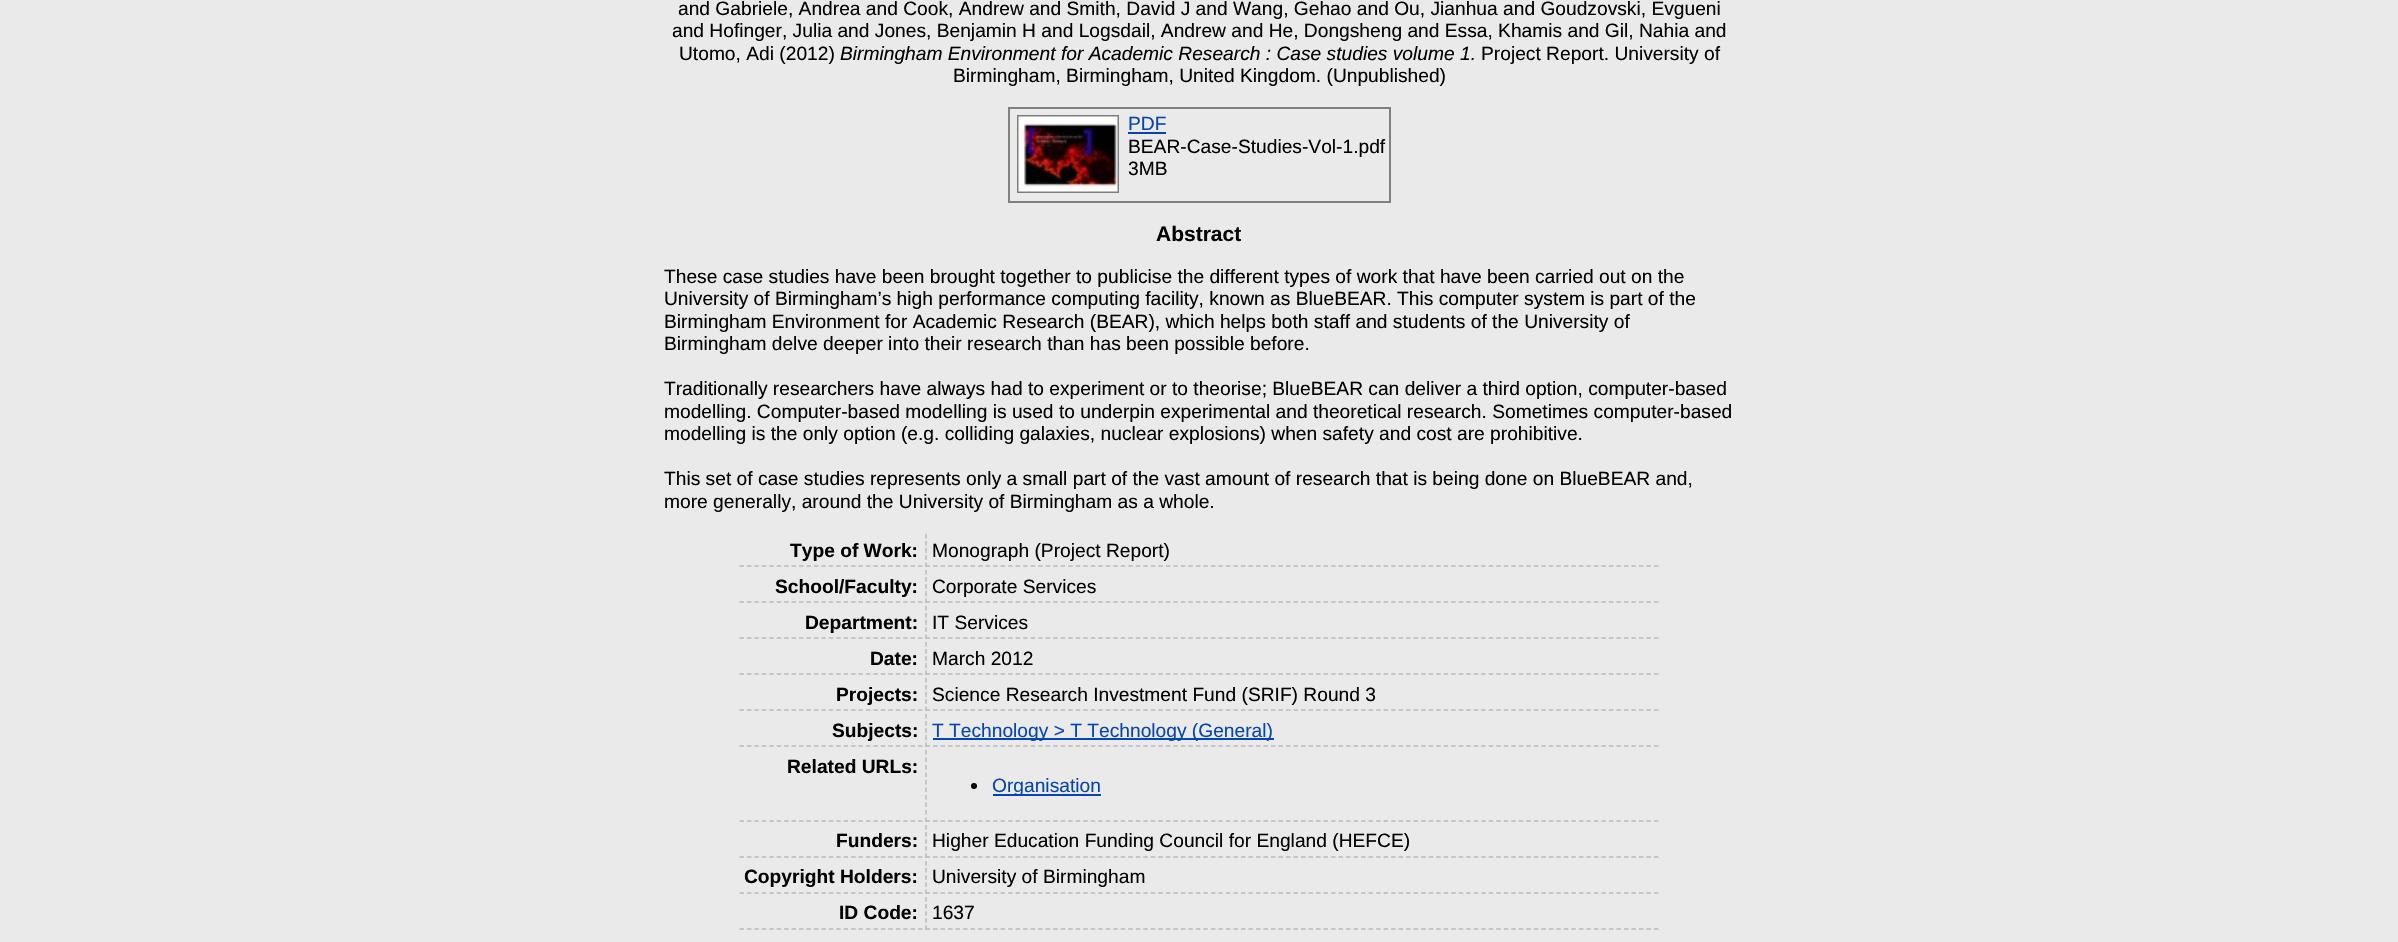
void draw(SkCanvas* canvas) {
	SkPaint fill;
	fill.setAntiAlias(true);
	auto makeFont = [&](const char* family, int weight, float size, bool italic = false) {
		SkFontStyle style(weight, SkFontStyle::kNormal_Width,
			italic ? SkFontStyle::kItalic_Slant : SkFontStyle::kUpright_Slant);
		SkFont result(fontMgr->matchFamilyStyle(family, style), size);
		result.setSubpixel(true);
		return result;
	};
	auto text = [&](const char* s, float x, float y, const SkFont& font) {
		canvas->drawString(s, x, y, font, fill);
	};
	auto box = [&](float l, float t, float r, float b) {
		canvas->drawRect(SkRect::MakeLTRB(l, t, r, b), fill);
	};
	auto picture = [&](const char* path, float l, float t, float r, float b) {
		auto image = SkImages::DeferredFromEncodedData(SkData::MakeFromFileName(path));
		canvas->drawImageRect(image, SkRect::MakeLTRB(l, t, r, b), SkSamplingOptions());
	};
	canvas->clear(0xFFEAEAEA);
	fill.setStyle(SkPaint::kStroke_Style);
	fill.setStrokeWidth(2);
	fill.setColor(0xFF808080);
	canvas->drawRect(SkRect::MakeLTRB(1009, 108, 1390, 202), fill);
	picture("image0.png", 1017, 115, 1119, 193);
	fill.setStyle(SkPaint::kFill_Style);
	fill.setColor(0xFF0645AD);
	box(1128, 132, 1166, 134);
	fill.setStyle(SkPaint::kStroke_Style);
	fill.setStrokeWidth(1.5f);
	fill.setColor(0xFFBBBBBB);
	fill.setPathEffect(SkDashPathEffect::Make({{4.5f, 2.94f}}, 0));
	canvas->drawPath(SkPathBuilder().moveTo(739.5f, 566).lineTo(922.5f, 566).detach(), fill);
	fill.setPathEffect(nullptr);
	fill.setPathEffect(SkDashPathEffect::Make({{4.5f, 3.01f}}, 0));
	canvas->drawPath(SkPathBuilder().moveTo(925.5f, 566).lineTo(1659, 566).detach(), fill);
	fill.setPathEffect(nullptr);
	fill.setPathEffect(SkDashPathEffect::Make({{4.5f, 2.62f}}, 0));
	canvas->drawPath(SkPathBuilder().moveTo(926, 534).lineTo(926, 567).detach(), fill);
	fill.setPathEffect(nullptr);
	fill.setPathEffect(SkDashPathEffect::Make({{4.5f, 2.94f}}, 0));
	canvas->drawPath(SkPathBuilder().moveTo(739.5f, 602).lineTo(922.5f, 602).detach(), fill);
	fill.setPathEffect(nullptr);
	fill.setPathEffect(SkDashPathEffect::Make({{4.5f, 3.01f}}, 0));
	canvas->drawPath(SkPathBuilder().moveTo(925.5f, 602).lineTo(1659, 602).detach(), fill);
	fill.setPathEffect(nullptr);
	fill.setPathEffect(SkDashPathEffect::Make({{4.5f, 2.62f}}, 0));
	canvas->drawPath(SkPathBuilder().moveTo(926, 570).lineTo(926, 603).detach(), fill);
	fill.setPathEffect(nullptr);
	fill.setPathEffect(SkDashPathEffect::Make({{4.5f, 2.94f}}, 0));
	canvas->drawPath(SkPathBuilder().moveTo(739.5f, 638).lineTo(922.5f, 638).detach(), fill);
	fill.setPathEffect(nullptr);
	fill.setPathEffect(SkDashPathEffect::Make({{4.5f, 3.01f}}, 0));
	canvas->drawPath(SkPathBuilder().moveTo(925.5f, 638).lineTo(1659, 638).detach(), fill);
	fill.setPathEffect(nullptr);
	fill.setPathEffect(SkDashPathEffect::Make({{4.5f, 2.62f}}, 0));
	canvas->drawPath(SkPathBuilder().moveTo(926, 606).lineTo(926, 639).detach(), fill);
	fill.setPathEffect(nullptr);
	fill.setPathEffect(SkDashPathEffect::Make({{4.5f, 2.94f}}, 0));
	canvas->drawPath(SkPathBuilder().moveTo(739.5f, 674).lineTo(922.5f, 674).detach(), fill);
	fill.setPathEffect(nullptr);
	fill.setPathEffect(SkDashPathEffect::Make({{4.5f, 3.01f}}, 0));
	canvas->drawPath(SkPathBuilder().moveTo(925.5f, 674).lineTo(1659, 674).detach(), fill);
	fill.setPathEffect(nullptr);
	fill.setPathEffect(SkDashPathEffect::Make({{4.5f, 2.62f}}, 0));
	canvas->drawPath(SkPathBuilder().moveTo(926, 642).lineTo(926, 675).detach(), fill);
	fill.setPathEffect(nullptr);
	fill.setPathEffect(SkDashPathEffect::Make({{4.5f, 2.94f}}, 0));
	canvas->drawPath(SkPathBuilder().moveTo(739.5f, 710).lineTo(922.5f, 710).detach(), fill);
	fill.setPathEffect(nullptr);
	fill.setPathEffect(SkDashPathEffect::Make({{4.5f, 3.01f}}, 0));
	canvas->drawPath(SkPathBuilder().moveTo(925.5f, 710).lineTo(1659, 710).detach(), fill);
	fill.setPathEffect(nullptr);
	fill.setPathEffect(SkDashPathEffect::Make({{4.5f, 2.62f}}, 0));
	canvas->drawPath(SkPathBuilder().moveTo(926, 678).lineTo(926, 711).detach(), fill);
	fill.setPathEffect(nullptr);
	fill.setPathEffect(SkDashPathEffect::Make({{4.5f, 2.94f}}, 0));
	canvas->drawPath(SkPathBuilder().moveTo(739.5f, 746).lineTo(922.5f, 746).detach(), fill);
	fill.setPathEffect(nullptr);
	fill.setPathEffect(SkDashPathEffect::Make({{4.5f, 3.01f}}, 0));
	canvas->drawPath(SkPathBuilder().moveTo(925.5f, 746).lineTo(1659, 746).detach(), fill);
	fill.setPathEffect(nullptr);
	fill.setPathEffect(SkDashPathEffect::Make({{4.5f, 2.62f}}, 0));
	canvas->drawPath(SkPathBuilder().moveTo(926, 714).lineTo(926, 747).detach(), fill);
	fill.setPathEffect(nullptr);
	fill.setStyle(SkPaint::kFill_Style);
	fill.setColor(0xFF0645AD);
	box(933, 738, 1274, 740);
	fill.setStyle(SkPaint::kStroke_Style);
	fill.setColor(0xFFBBBBBB);
	fill.setPathEffect(SkDashPathEffect::Make({{4.5f, 2.94f}}, 0));
	canvas->drawPath(SkPathBuilder().moveTo(739.5f, 821).lineTo(922.5f, 821).detach(), fill);
	fill.setPathEffect(nullptr);
	fill.setPathEffect(SkDashPathEffect::Make({{4.5f, 3.01f}}, 0));
	canvas->drawPath(SkPathBuilder().moveTo(925.5f, 821).lineTo(1659, 821).detach(), fill);
	fill.setPathEffect(nullptr);
	fill.setPathEffect(SkDashPathEffect::Make({{4.5f, 3}}, 0));
	canvas->drawPath(SkPathBuilder().moveTo(926, 750).lineTo(926, 822).detach(), fill);
	fill.setPathEffect(nullptr);
	fill.setStyle(SkPaint::kFill_Style);
	fill.setColor(0xFF000000);
	canvas->drawCircle(974, 786, 3, fill);
	fill.setColor(0xFF0645AD);
	box(993, 794, 1101, 796);
	fill.setStyle(SkPaint::kStroke_Style);
	fill.setColor(0xFFBBBBBB);
	fill.setPathEffect(SkDashPathEffect::Make({{4.5f, 2.94f}}, 0));
	canvas->drawPath(SkPathBuilder().moveTo(739.5f, 857).lineTo(922.5f, 857).detach(), fill);
	fill.setPathEffect(nullptr);
	fill.setPathEffect(SkDashPathEffect::Make({{4.5f, 3.01f}}, 0));
	canvas->drawPath(SkPathBuilder().moveTo(925.5f, 857).lineTo(1659, 857).detach(), fill);
	fill.setPathEffect(nullptr);
	fill.setPathEffect(SkDashPathEffect::Make({{4.5f, 2.62f}}, 0));
	canvas->drawPath(SkPathBuilder().moveTo(926, 825).lineTo(926, 858).detach(), fill);
	fill.setPathEffect(nullptr);
	fill.setPathEffect(SkDashPathEffect::Make({{4.5f, 2.94f}}, 0));
	canvas->drawPath(SkPathBuilder().moveTo(739.5f, 893).lineTo(922.5f, 893).detach(), fill);
	fill.setPathEffect(nullptr);
	fill.setPathEffect(SkDashPathEffect::Make({{4.5f, 3.01f}}, 0));
	canvas->drawPath(SkPathBuilder().moveTo(925.5f, 893).lineTo(1659, 893).detach(), fill);
	fill.setPathEffect(nullptr);
	fill.setPathEffect(SkDashPathEffect::Make({{4.5f, 2.62f}}, 0));
	canvas->drawPath(SkPathBuilder().moveTo(926, 861).lineTo(926, 894).detach(), fill);
	fill.setPathEffect(nullptr);
	fill.setPathEffect(SkDashPathEffect::Make({{4.5f, 2.94f}}, 0));
	canvas->drawPath(SkPathBuilder().moveTo(739.5f, 929).lineTo(922.5f, 929).detach(), fill);
	fill.setPathEffect(nullptr);
	fill.setPathEffect(SkDashPathEffect::Make({{4.5f, 3.01f}}, 0));
	canvas->drawPath(SkPathBuilder().moveTo(925.5f, 929).lineTo(1659, 929).detach(), fill);
	fill.setPathEffect(nullptr);
	fill.setPathEffect(SkDashPathEffect::Make({{4.5f, 2.62f}}, 0));
	canvas->drawPath(SkPathBuilder().moveTo(926, 897).lineTo(926, 930).detach(), fill);
	fill.setPathEffect(nullptr);
	auto font1 = makeFont("Liberation Sans", 400, 19.2f);
	fill.setStyle(SkPaint::kFill_Style);
	fill.setColor(0xFF000000);
	text("and Gabriele, Andrea and Cook, Andrew and Smith, David J and Wang, Gehao and Ou, Jianhua and Goudzovski, Evgueni", 678, 15, font1);
	text("and Hofinger, Julia and Jones, Benjamin H and Logsdail, Andrew and He, Dongsheng and Essa, Khamis and Gil, Nahia and", 672, 37, font1);
	text("Utomo, Adi (2012)", 679, 60, font1);
	auto font2 = makeFont("Liberation Sans", 400, 19.2f, true);
	text("Birmingham Environment for Academic Research : Case studies volume 1.", 840, 60, font2);
	text("Project Report. University of", 1481, 60, font1);
	text("Birmingham, Birmingham, United Kingdom. (Unpublished)", 953, 82, font1);
	fill.setColor(0xFF0645AD);
	text("PDF", 1128, 130, font1);
	fill.setColor(0xFF000000);
	text("BEAR-Case-Studies-Vol-1.pdf", 1128, 153, font1);
	text("3MB", 1128, 175, font1);
	auto font3 = makeFont("Liberation Sans", 700, 21);
	text("Abstract", 1156, 241, font3);
	text("These case studies have been brought together to publicise the different types of work that have been carried out on the", 664, 283, font1);
	text("University of Birmingham’s high performance computing facility, known as BlueBEAR. This computer system is part of the", 664, 305, font1);
	text("Birmingham Environment for Academic Research (BEAR), which helps both staff and students of the University of", 664, 328, font1);
	text("Birmingham delve deeper into their research than has been possible before.", 664, 350, font1);
	text("Traditionally researchers have always had to experiment or to theorise; BlueBEAR can deliver a third option, computer-based", 664, 395, font1);
	text("modelling. Computer-based modelling is used to underpin experimental and theoretical research. Sometimes computer-based", 664, 418, font1);
	text("modelling is the only option (e.g. colliding galaxies, nuclear explosions) when safety and cost are prohibitive.", 664, 440, font1);
	text("This set of case studies represents only a small part of the vast amount of research that is being done on BlueBEAR and,", 664, 485, font1);
	text("more generally, around the University of Birmingham as a whole.", 664, 508, font1);
	auto font4 = makeFont("Liberation Sans", 700, 19.2f);
	text("Type of Work:", 790, 557, font4);
	text("Monograph (Project Report)", 932, 557, font1);
	text("School/Faculty:", 775, 593, font4);
	text("Corporate Services", 932, 593, font1);
	text("Department:", 805, 629, font4);
	text("IT Services", 932, 629, font1);
	text("Date:", 870, 665, font4);
	text("March 2012", 932, 665, font1);
	text("Projects:", 836, 701, font4);
	text("Science Research Investment Fund (SRIF) Round 3", 932, 701, font1);
	text("Subjects:", 832, 737, font4);
	fill.setColor(0xFF0645AD);
	text("T Technology > T Technology (General)", 932, 737, font1);
	fill.setColor(0xFF000000);
	text("Related URLs:", 787, 773, font4);
	fill.setColor(0xFF0645AD);
	text("Organisation", 992, 792, font1);
	fill.setColor(0xFF000000);
	text("Funders:", 836, 847, font4);
	text("Higher Education Funding Council for England (HEFCE)", 932, 847, font1);
	text("Copyright Holders:", 744, 883, font4);
	text("University of Birmingham", 932, 883, font1);
	text("ID Code:", 839, 919, font4);
	text("1637", 932, 919, font1);
}
